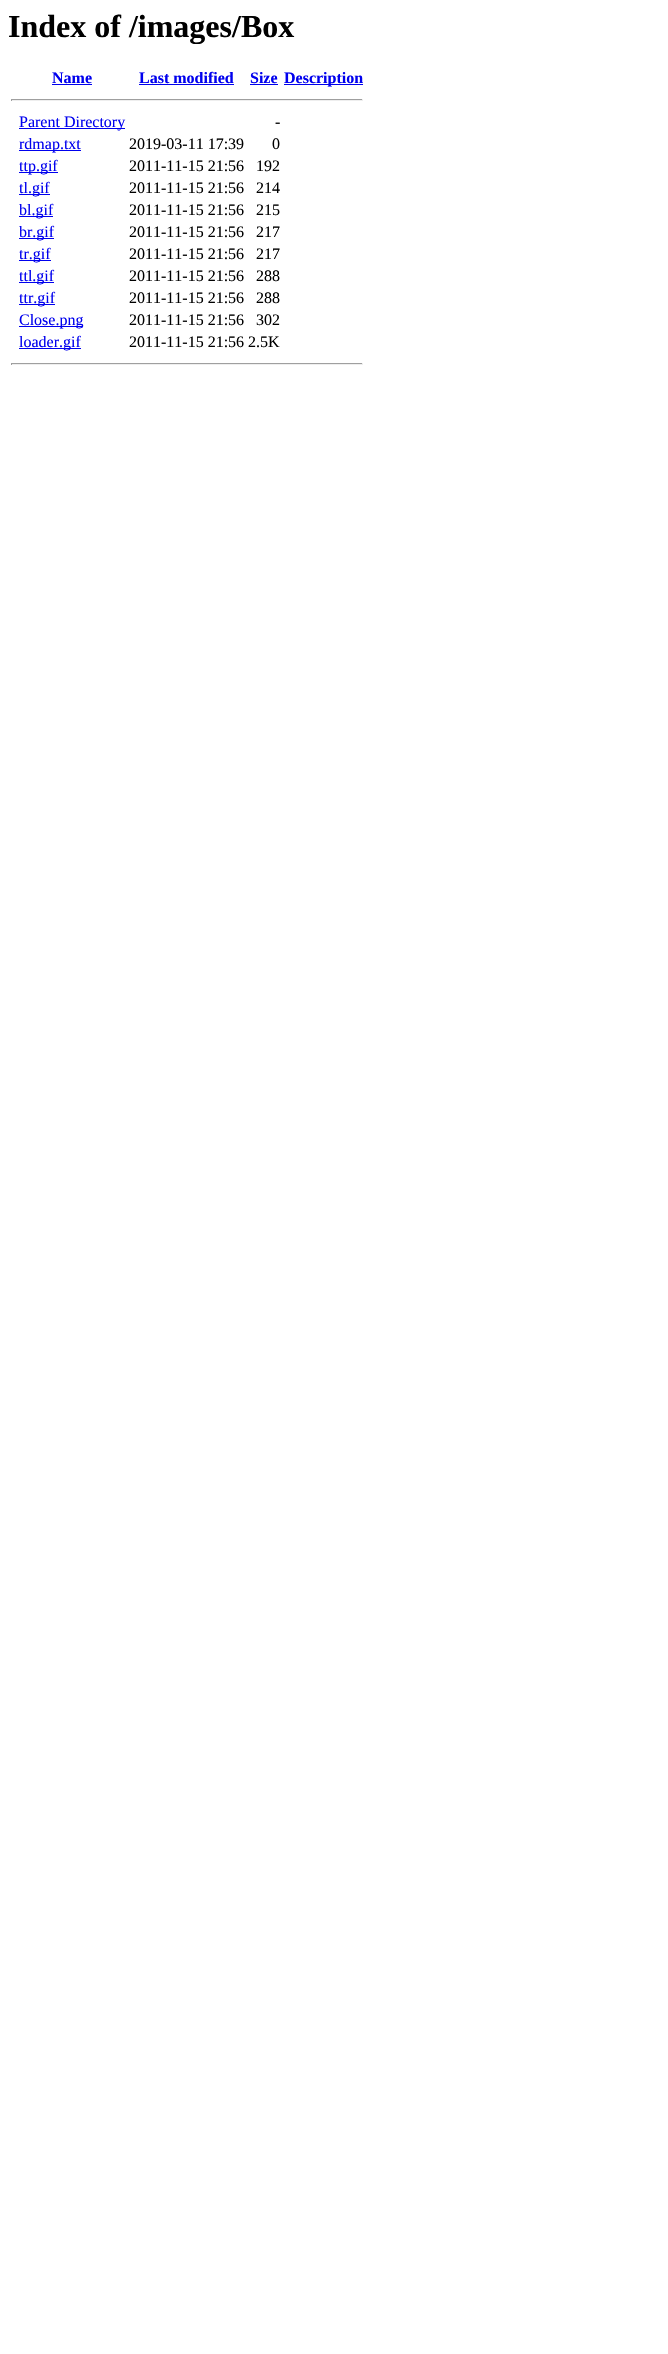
void draw(SkCanvas* canvas) {
	SkPaint fill;
	fill.setAntiAlias(true);
	auto makeFont = [&](const char* family, int weight, float size, bool italic = false) {
		SkFontStyle style(weight, SkFontStyle::kNormal_Width,
			italic ? SkFontStyle::kItalic_Slant : SkFontStyle::kUpright_Slant);
		SkFont result(fontMgr->matchFamilyStyle(family, style), size);
		result.setSubpixel(true);
		return result;
	};
	auto text = [&](const char* s, float x, float y, const SkFont& font) {
		canvas->drawString(s, x, y, font, fill);
	};
	auto box = [&](float l, float t, float r, float b) {
		canvas->drawRect(SkRect::MakeLTRB(l, t, r, b), fill);
	};
	canvas->clear(0xFFFFFFFF);
	fill.setColor(0xFF0000EE);
	box(52, 84, 92, 85);
	box(139, 84, 234, 85);
	box(250, 84, 278, 85);
	box(284, 84, 363, 85);
	fill.setColor(0xFF9F9F9F);
	box(11, 99, 363, 100);
	fill.setColor(0xFFEEEEEE);
	box(362, 99, 363, 101);
	box(11, 100, 363, 101);
	fill.setColor(0xFF9F9F9F);
	box(11, 99, 12, 101);
	fill.setColor(0xFF0000EE);
	box(19, 128, 125, 129);
	box(19, 150, 81, 151);
	box(19, 172, 58, 173);
	box(19, 194, 50, 195);
	box(19, 216, 53, 217);
	box(19, 238, 54, 239);
	box(19, 260, 51, 261);
	box(19, 282, 54, 283);
	box(19, 304, 55, 305);
	box(19, 326, 83, 327);
	box(19, 348, 81, 349);
	fill.setColor(0xFF9F9F9F);
	box(11, 363, 363, 364);
	fill.setColor(0xFFEEEEEE);
	box(362, 363, 363, 365);
	box(11, 364, 363, 365);
	fill.setColor(0xFF9F9F9F);
	box(11, 363, 12, 365);
	auto font1 = makeFont("Liberation Serif", 700, 32);
	fill.setColor(0xFF000000);
	text("Index of /images/Box", 8, 37, font1);
	auto font2 = makeFont("Liberation Serif", 700, 16);
	fill.setColor(0xFF0000EE);
	text("Name", 52, 83, font2);
	text("Last modified", 139, 83, font2);
	text("Size", 250, 83, font2);
	text("Description", 284, 83, font2);
	auto font3 = makeFont("Liberation Serif", 400, 16);
	text("Parent Directory", 19, 127, font3);
	fill.setColor(0xFF000000);
	text("-", 275, 127, font3);
	fill.setColor(0xFF0000EE);
	text("rdmap.txt", 19, 149, font3);
	fill.setColor(0xFF000000);
	text("2019-03-11 17:39", 129, 149, font3);
	text("0", 272, 149, font3);
	fill.setColor(0xFF0000EE);
	text("ttp.gif", 19, 171, font3);
	fill.setColor(0xFF000000);
	text("2011-11-15 21:56", 129, 171, font3);
	text("192", 256, 171, font3);
	fill.setColor(0xFF0000EE);
	text("tl.gif", 19, 193, font3);
	fill.setColor(0xFF000000);
	text("2011-11-15 21:56", 129, 193, font3);
	text("214", 256, 193, font3);
	fill.setColor(0xFF0000EE);
	text("bl.gif", 19, 215, font3);
	fill.setColor(0xFF000000);
	text("2011-11-15 21:56", 129, 215, font3);
	text("215", 256, 215, font3);
	fill.setColor(0xFF0000EE);
	text("br.gif", 19, 237, font3);
	fill.setColor(0xFF000000);
	text("2011-11-15 21:56", 129, 237, font3);
	text("217", 256, 237, font3);
	fill.setColor(0xFF0000EE);
	text("tr.gif", 19, 259, font3);
	fill.setColor(0xFF000000);
	text("2011-11-15 21:56", 129, 259, font3);
	text("217", 256, 259, font3);
	fill.setColor(0xFF0000EE);
	text("ttl.gif", 19, 281, font3);
	fill.setColor(0xFF000000);
	text("2011-11-15 21:56", 129, 281, font3);
	text("288", 256, 281, font3);
	fill.setColor(0xFF0000EE);
	text("ttr.gif", 19, 303, font3);
	fill.setColor(0xFF000000);
	text("2011-11-15 21:56", 129, 303, font3);
	text("288", 256, 303, font3);
	fill.setColor(0xFF0000EE);
	text("Close.png", 19, 325, font3);
	fill.setColor(0xFF000000);
	text("2011-11-15 21:56", 129, 325, font3);
	text("302", 256, 325, font3);
	fill.setColor(0xFF0000EE);
	text("loader.gif", 19, 347, font3);
	fill.setColor(0xFF000000);
	text("2011-11-15 21:56 2.5K", 129, 347, font3);
}
